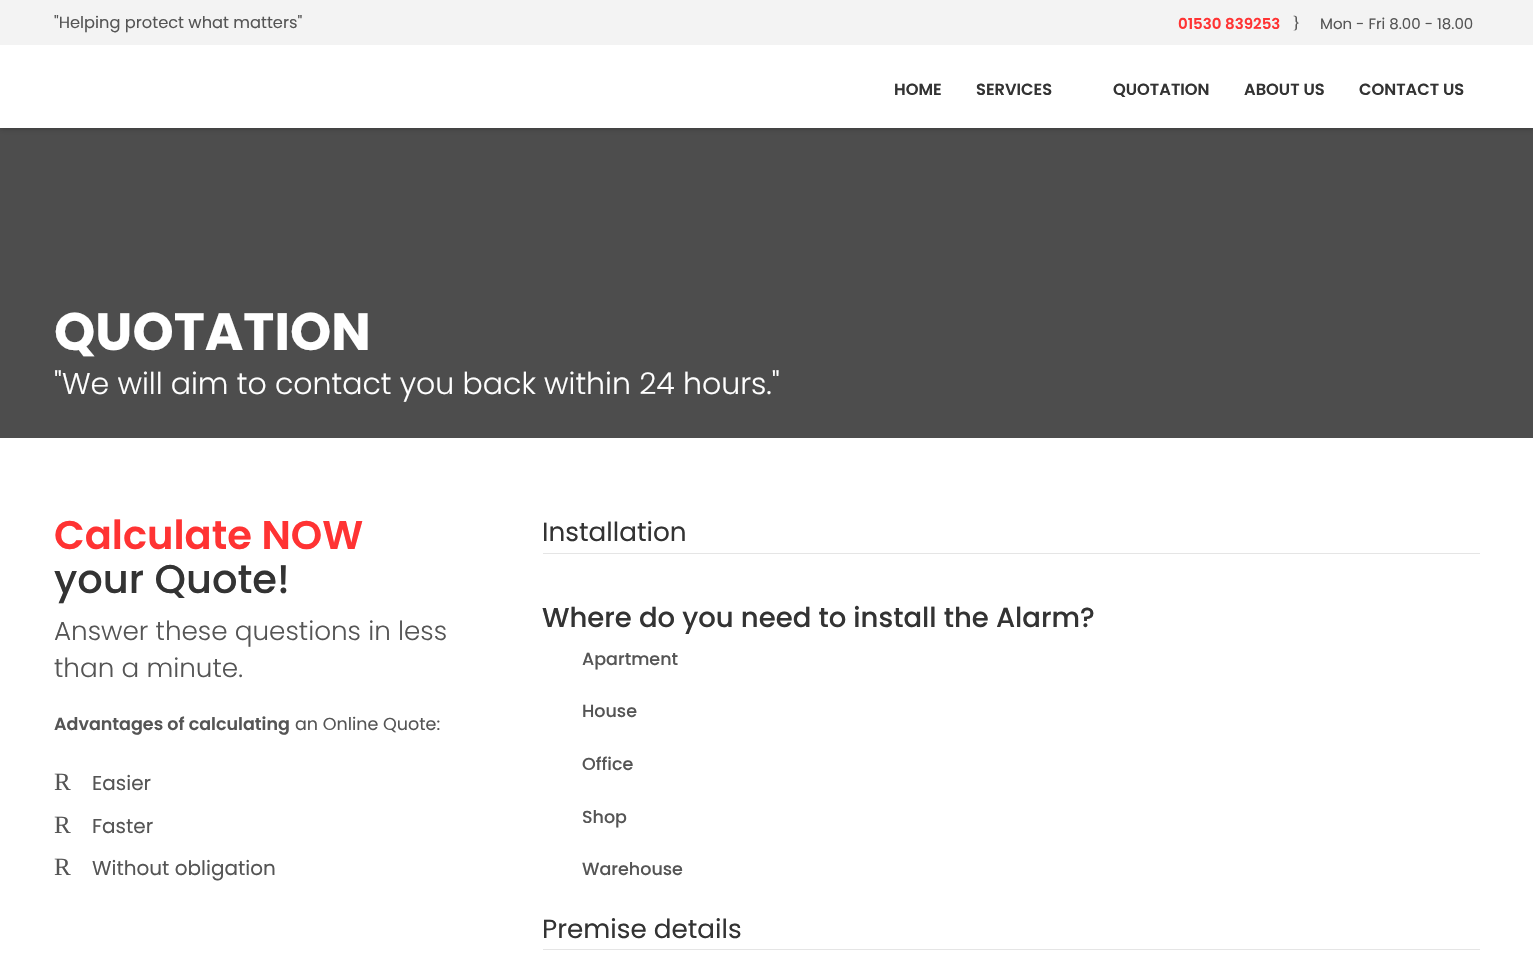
void draw(SkCanvas* canvas) {
	SkPaint fill;
	fill.setAntiAlias(true);
	auto makeFont = [&](const char* family, int weight, float size, bool italic = false) {
		SkFontStyle style(weight, SkFontStyle::kNormal_Width,
			italic ? SkFontStyle::kItalic_Slant : SkFontStyle::kUpright_Slant);
		SkFont result(fontMgr->matchFamilyStyle(family, style), size);
		result.setSubpixel(true);
		return result;
	};
	auto text = [&](const char* s, float x, float y, const SkFont& font) {
		canvas->drawString(s, x, y, font, fill);
	};
	auto box = [&](float l, float t, float r, float b) {
		canvas->drawRect(SkRect::MakeLTRB(l, t, r, b), fill);
	};
	canvas->clear(0xFFFFFFFF);
	fill.setColor(0xFF4D4D4D);
	box(0, 128, 1533, 438);
	fill.setColor(0x4D000000);
	fill.setMaskFilter(SkMaskFilter::MakeBlur(kNormal_SkBlurStyle, 3));
	canvas->drawRect(SkRect::MakeLTRB(0, 0, 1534, 128), fill);
	fill.setMaskFilter(nullptr);
	fill.setColor(0xFFFFFFFF);
	box(0, 45, 1533, 128);
	fill.setColor(0xFFF3F3F3);
	box(0, 0, 1533, 45);
	fill.setColor(0xFFE5E5E5);
	box(543, 553, 1480, 554);
	box(543, 949, 1480, 950);
	auto font1 = makeFont("Poppins", 400, 16.25f);
	fill.setColor(0xFF555555);
	text("\"Helping protect what matters\"", 54, 28, font1);
	auto font2 = makeFont("Poppins", 600, 15);
	fill.setColor(0xFFFF3333);
	text("01530 839253", 1178, 29, font2);
	auto font3 = makeFont("Liberation Serif", 400, 17.5f);
	fill.setColor(0xFF555555);
	text("}", 1292, 28, font3);
	auto font4 = makeFont("Poppins", 400, 15);
	text("Mon - Fri 8.00 - 18.00", 1320, 29, font4);
	auto font5 = makeFont("Poppins", 600, 16.25f);
	fill.setColor(0xFF333333);
	text("HOME", 894, 95, font5);
	text("SERVICES", 976, 95, font5);
	text("QUOTATION", 1113, 95, font5);
	text("ABOUT US", 1244, 95, font5);
	text("CONTACT US", 1359, 95, font5);
	auto font6 = makeFont("Poppins", 700, 52.5f);
	fill.setColor(0xFFFFFFFF);
	text("QUOTATION", 54, 350, font6);
	auto font7 = makeFont("Poppins", 300, 30);
	text("\"We will aim to contact you back within 24 hours.\"", 54, 394, font7);
	auto font8 = makeFont("Poppins", 600, 40);
	fill.setColor(0xFFFF3333);
	text("Calculate NOW", 54, 549, font8);
	auto font9 = makeFont("Poppins", 500, 40);
	fill.setColor(0xFF333333);
	text("your Quote!", 54, 593, font9);
	auto font10 = makeFont("Poppins", 300, 26.25f);
	fill.setColor(0xFF555555);
	text("Answer these questions in less", 54, 640, font10);
	text("than a minute.", 54, 677, font10);
	auto font11 = makeFont("Poppins", 600, 17.5f);
	text("Advantages of calculating", 54, 730, font11);
	auto font12 = makeFont("Poppins", 400, 17.5f);
	text("an Online Quote:", 295, 730, font12);
	auto font13 = makeFont("Liberation Serif", 400, 25);
	text("R", 54, 790, font13);
	auto font14 = makeFont("Poppins", 400, 20);
	text("Easier", 92, 790, font14);
	text("R", 54, 833, font13);
	text("Faster", 92, 833, font14);
	text("R", 54, 875, font13);
	text("Without obligation", 92, 875, font14);
	auto font15 = makeFont("Poppins", 400, 26.25f);
	fill.setColor(0xFF333333);
	text("Installation", 542, 541, font15);
	auto font16 = makeFont("Poppins", 500, 27.5f);
	text("Where do you need to install the Alarm?", 542, 627, font16);
	auto font17 = makeFont("Poppins", 500, 17.5f);
	fill.setColor(0xFF555555);
	text("Apartment", 582, 665, font17);
	text("House", 582, 717, font17);
	text("Office", 582, 770, font17);
	text("Shop", 582, 823, font17);
	text("Warehouse", 582, 875, font17);
	fill.setColor(0xFF333333);
	text("Premise details", 542, 938, font15);
}
